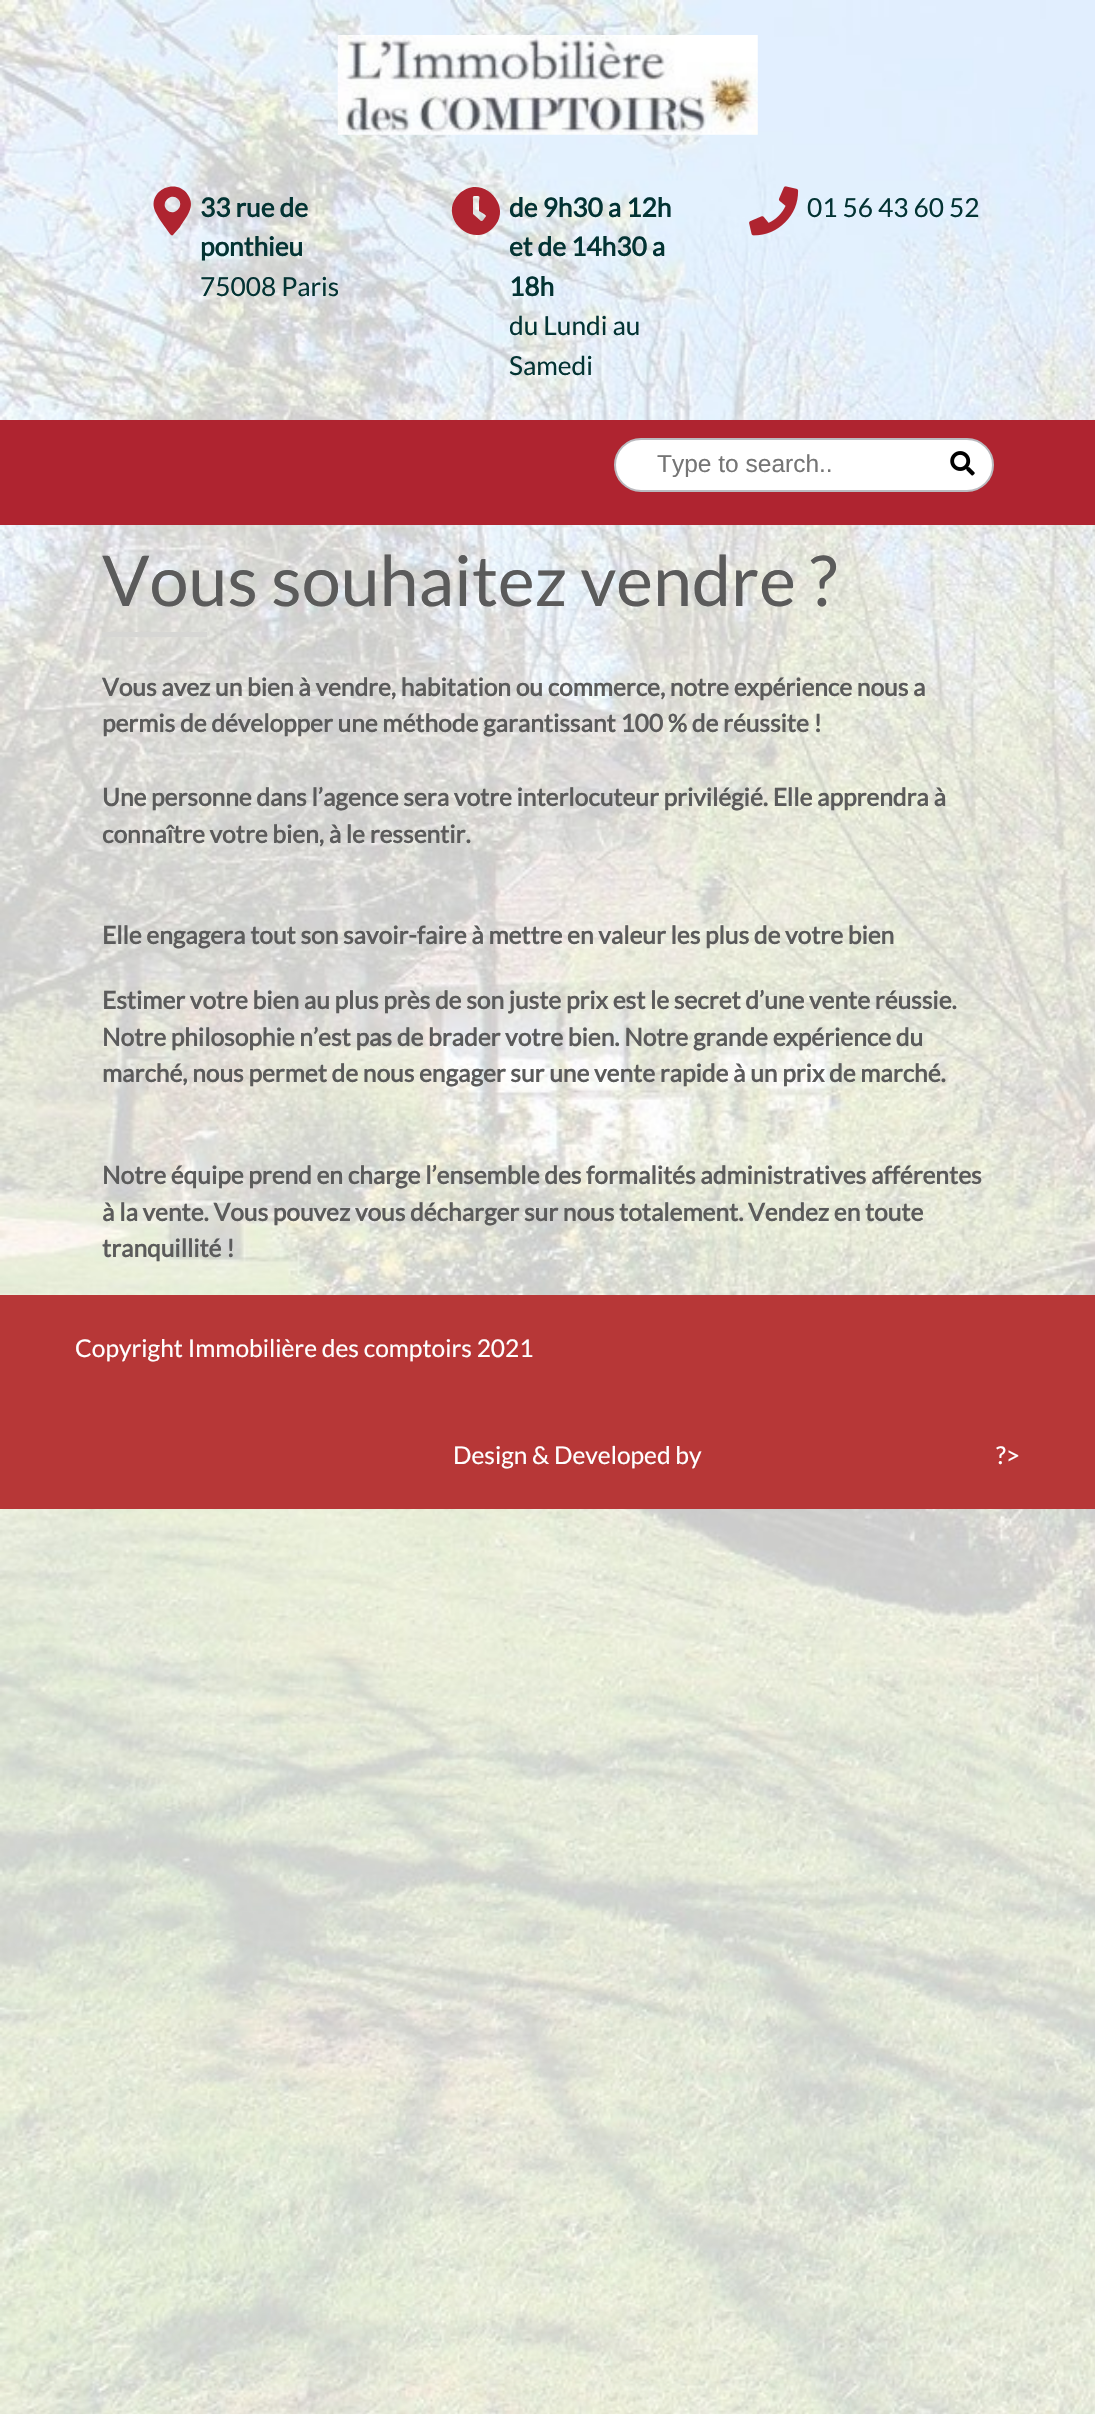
void draw(SkCanvas* canvas) {
	SkPaint fill;
	fill.setAntiAlias(true);
	auto makeFont = [&](const char* family, int weight, float size, bool italic = false) {
		SkFontStyle style(weight, SkFontStyle::kNormal_Width,
			italic ? SkFontStyle::kItalic_Slant : SkFontStyle::kUpright_Slant);
		SkFont result(fontMgr->matchFamilyStyle(family, style), size);
		result.setSubpixel(true);
		return result;
	};
	auto text = [&](const char* s, float x, float y, const SkFont& font) {
		canvas->drawString(s, x, y, font, fill);
	};
	auto box = [&](float l, float t, float r, float b) {
		canvas->drawRect(SkRect::MakeLTRB(l, t, r, b), fill);
	};
	auto picture = [&](const char* path, float l, float t, float r, float b) {
		auto image = SkImages::DeferredFromEncodedData(SkData::MakeFromFileName(path));
		canvas->drawImageRect(image, SkRect::MakeLTRB(l, t, r, b), SkSamplingOptions());
	};
	canvas->clear(0xFFFFFFFF);
	picture("image0.png", 0, 0, 1095, 2414);
	picture("image1.png", 337, 35, 758, 135);
	fill.setColor(0xFFAF2430);
	canvas->drawPath(SkPathBuilder().moveTo(170, 234).cubicTo(166, 228, 156, 216, 154, 208).cubicTo(150, 189, 177, 178, 188, 195).cubicTo(196, 207, 186, 217, 180, 227).lineTo(173, 235).cubicTo(172, 236, 171, 235, 170, 234).close().moveTo(167, 210).cubicTo(174, 217, 185, 206, 178, 199).cubicTo(171, 192, 160, 203, 167, 210).close().detach(), fill);
	canvas->drawPath(SkPathBuilder().moveTo(459, 194).cubicTo(481, 172, 515, 206, 493, 228).cubicTo(471, 250, 437, 216, 459, 194).close().moveTo(481, 221).cubicTo(483, 221, 483, 220, 484, 219).cubicTo(486, 216, 487, 216, 484, 214).lineTo(479, 211).lineTo(479, 202).cubicTo(479, 198, 481, 196, 477, 196).cubicTo(472, 196, 473, 196, 473, 200).lineTo(473, 214).close().detach(), fill);
	picture("image2.png", 749, 186, 799, 236);
	box(0, 420, 1095, 525);
	fill.setColor(0xFFFFFFFF);
	canvas->drawRoundRect(SkRect::MakeLTRB(615, 439, 993, 491), 26, 26, fill);
	fill.setStyle(SkPaint::kStroke_Style);
	fill.setStrokeWidth(2);
	fill.setColor(0xFFBABABF);
	canvas->drawRoundRect(SkRect::MakeLTRB(615, 439, 993, 491), 26, 26, fill);
	picture("image3.png", 950, 451, 975, 476);
	fill.setStyle(SkPaint::kFill_Style);
	fill.setColor(0xFFD6D6D4);
	box(102, 632, 207, 637);
	fill.setColor(0xFFB73737);
	box(0, 1295, 1095, 1509);
	auto font1 = makeFont("Lato", 700, 26.25f);
	fill.setColor(0xFF033333);
	text("33 rue de", 200, 217, font1);
	text("ponthieu", 200, 256, font1);
	auto font2 = makeFont("Lato", 400, 26.25f);
	text("75008 Paris", 200, 296, font2);
	text("de 9h30 a 12h", 509, 217, font1);
	text("et de 14h30 a", 509, 256, font1);
	text("18h", 509, 296, font1);
	text("du Lundi au", 509, 335, font2);
	text("Samedi", 509, 375, font2);
	text("01 56 43 60 52", 807, 217, font2);
	auto font3 = makeFont("Liberation Sans", 400, 24.5f);
	fill.setColor(0xFF757575);
	text("Type to search..", 657, 472, font3);
	auto font4 = makeFont("Lato", 400, 70);
	fill.setColor(0xFF5B5B5B);
	text("Vous souhaitez vendre ?", 102, 606, font4);
	auto font5 = makeFont("Lato", 700, 24.5f);
	text("Vous avez un bien à vendre, habitation ou commerce, notre expérience nous a", 102, 696, font5);
	text("permis de développer une méthode garantissant 100 % de réussite !", 102, 732, font5);
	text("Une personne dans l’agence sera votre interlocuteur privilégié. Elle apprendra à", 102, 806, font5);
	text("connaître votre bien, à le ressentir.", 102, 843, font5);
	text("Elle engagera tout son savoir-faire à mettre en valeur les plus de votre bien", 102, 944, font5);
	text("Estimer votre bien au plus près de son juste prix est le secret d’une vente réussie.", 102, 1009, font5);
	text("Notre philosophie n’est pas de brader votre bien. Notre grande expérience du", 102, 1046, font5);
	text("marché, nous permet de nous engager sur une vente rapide à un prix de marché.", 102, 1082, font5);
	text("Notre équipe prend en charge l’ensemble des formalités administratives afférentes", 102, 1184, font5);
	text("à la vente. Vous pouvez vous décharger sur nous totalement. Vendez en toute", 102, 1221, font5);
	text("tranquillité !", 102, 1257, font5);
	auto font6 = makeFont("Lato", 400, 24.5f);
	fill.setColor(0xFFFFFFFF);
	text("Copyright Immobilière des comptoirs 2021", 75, 1357, font6);
	text("Design & Developed by", 453, 1464, font6);
	text("?>", 996, 1464, font6);
}
